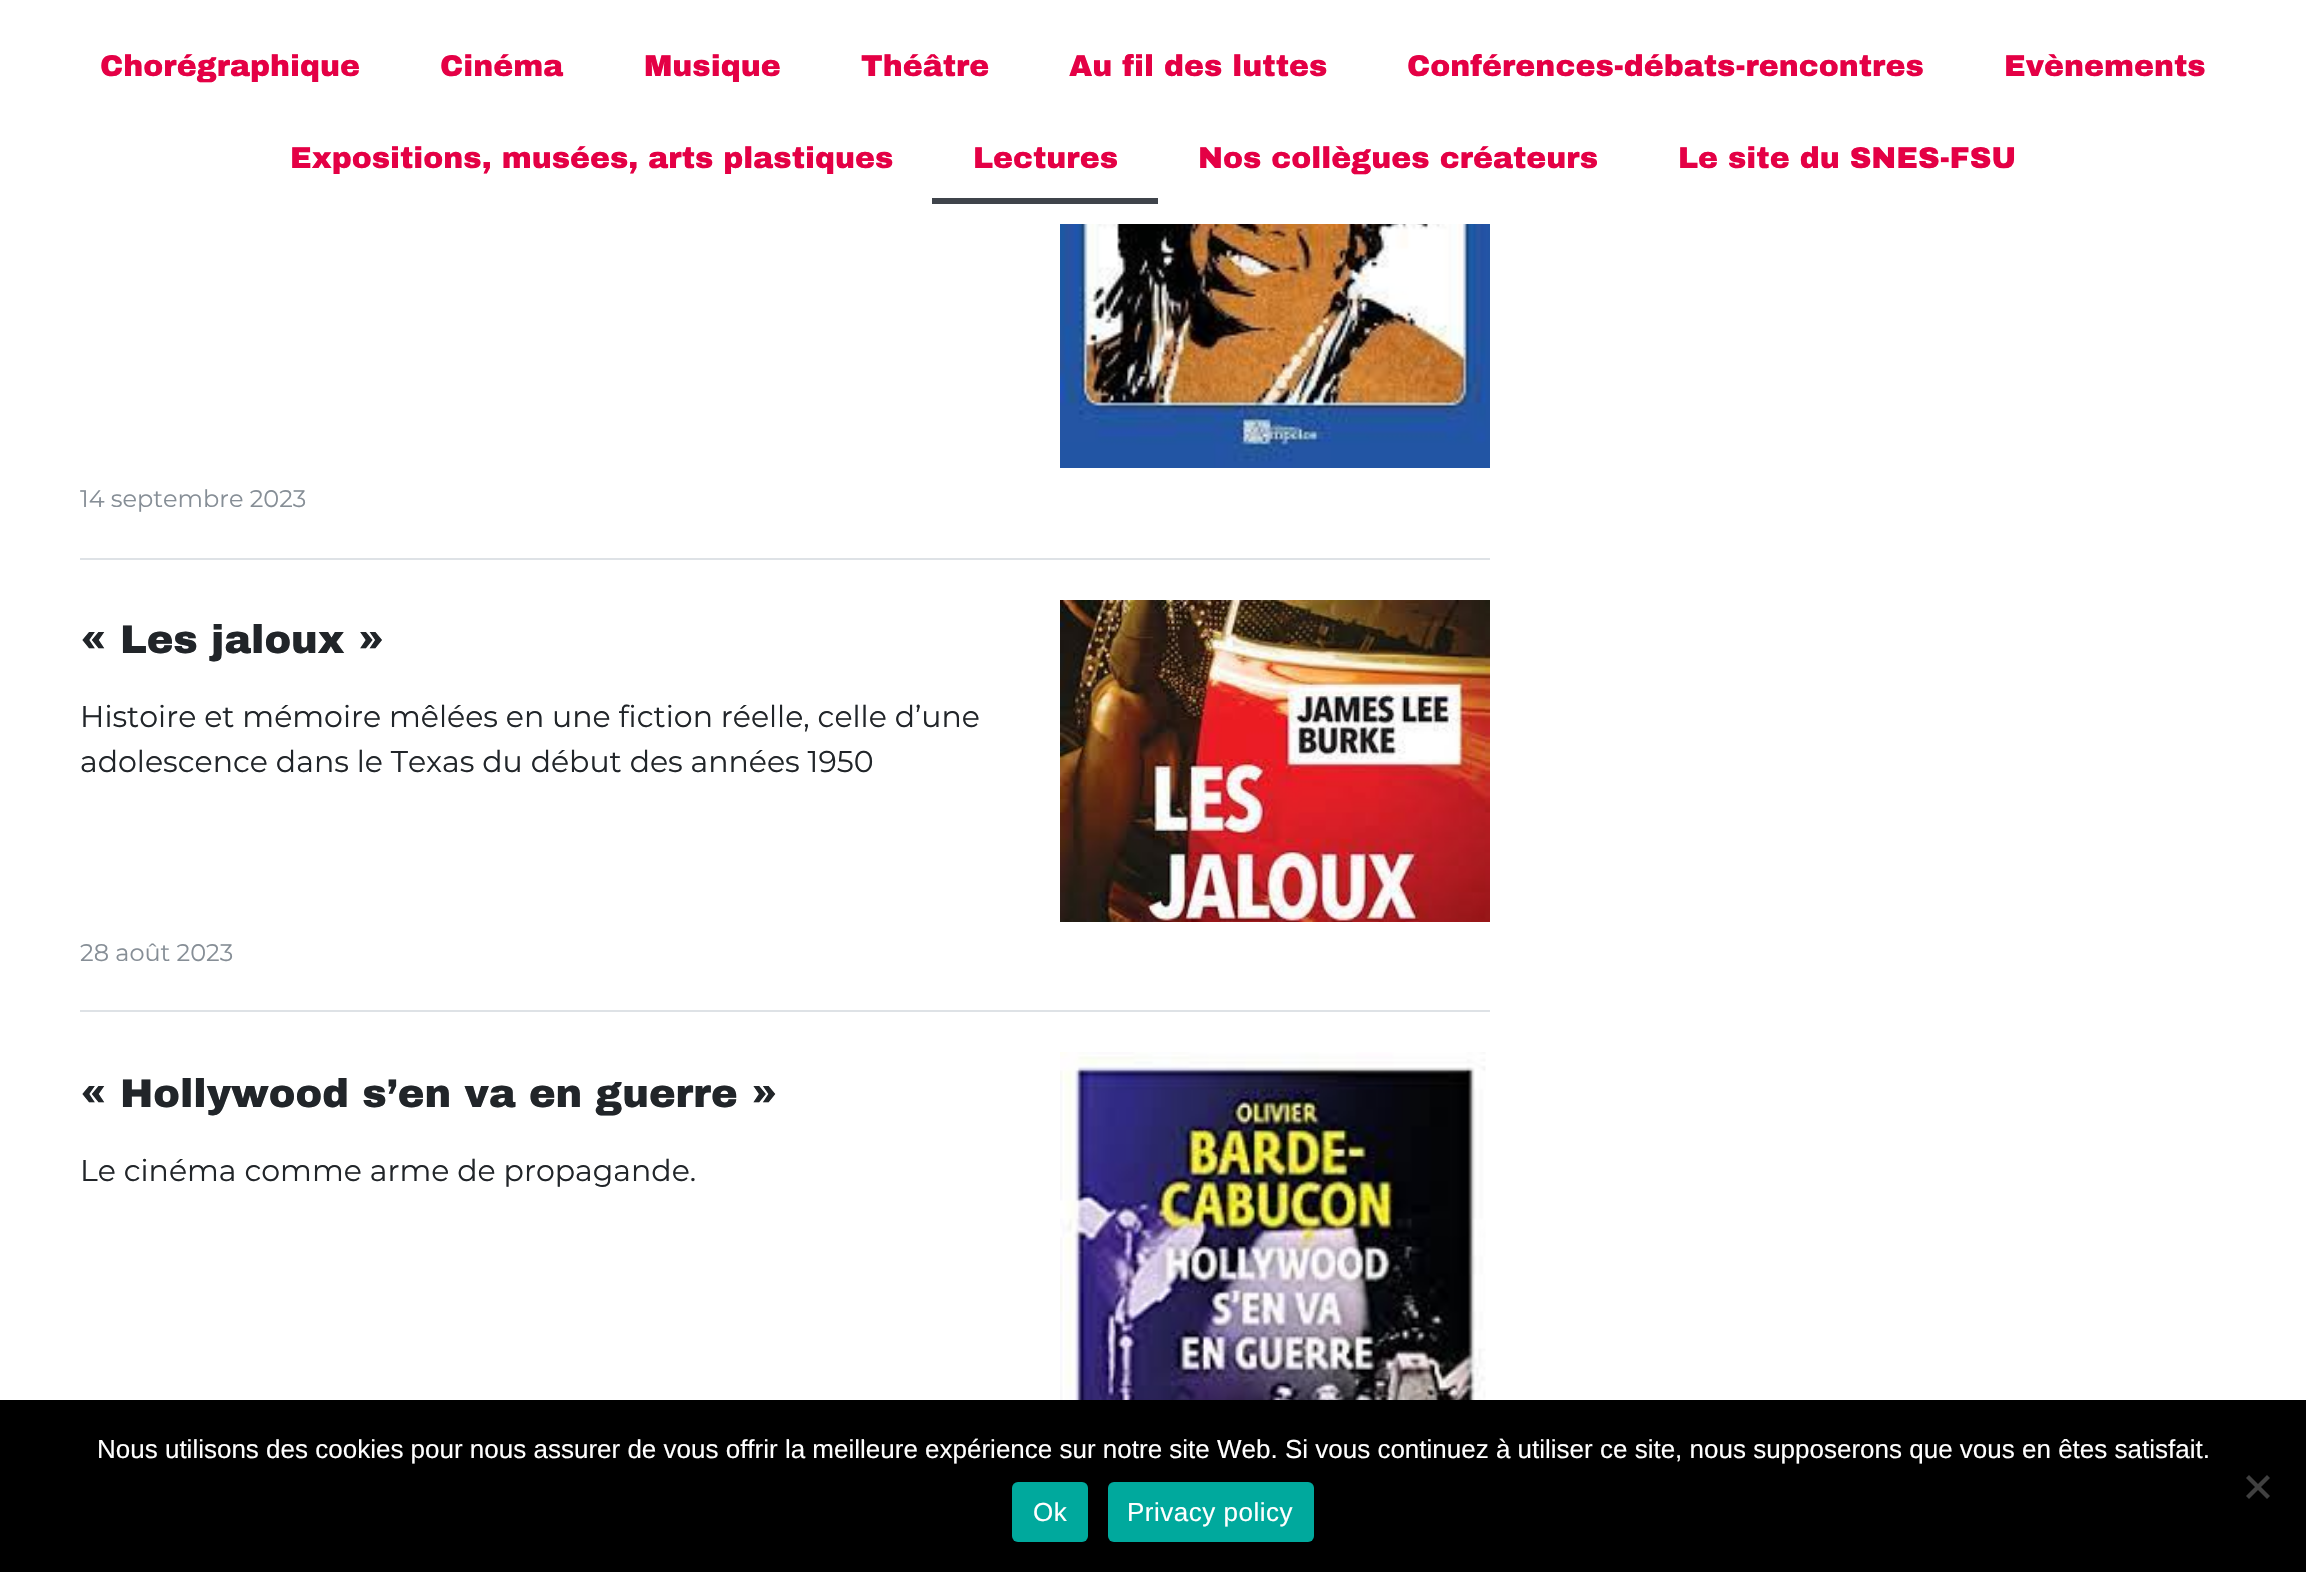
void draw(SkCanvas* canvas) {
	SkPaint fill;
	fill.setAntiAlias(true);
	auto makeFont = [&](const char* family, int weight, float size, bool italic = false) {
		SkFontStyle style(weight, SkFontStyle::kNormal_Width,
			italic ? SkFontStyle::kItalic_Slant : SkFontStyle::kUpright_Slant);
		SkFont result(fontMgr->matchFamilyStyle(family, style), size);
		result.setSubpixel(true);
		return result;
	};
	auto text = [&](const char* s, float x, float y, const SkFont& font) {
		canvas->drawString(s, x, y, font, fill);
	};
	auto spacedText = [&](const char* s, float x, float y, const SkFont& font, const SkPaint& ink, float letter, float word) {
		std::vector<SkGlyphID> glyphs(font.countText(s, strlen(s), SkTextEncoding::kUTF8));
		std::vector<float> xs(glyphs.size());
		font.textToGlyphs(s, strlen(s), SkTextEncoding::kUTF8, glyphs);
		font.getXPos(glyphs, xs, x);
		float extra = 0;
		for (size_t i = 0; i < glyphs.size(); i++) {
			xs[i] += extra;
			extra += letter + word * (glyphs[i] == font.unicharToGlyph(' '));
		}
		canvas->drawTextBlob(SkTextBlob::MakeFromPosHGlyphs(glyphs, xs, y, font), 0, 0, ink);
	};
	auto box = [&](float l, float t, float r, float b) {
		canvas->drawRect(SkRect::MakeLTRB(l, t, r, b), fill);
	};
	auto roundBox = [&](float l, float t, float r, float b, float radius) {
		canvas->drawRoundRect(SkRect::MakeLTRB(l, t, r, b), radius, radius, fill);
	};
	auto picture = [&](const char* path, float l, float t, float r, float b) {
		auto image = SkImages::DeferredFromEncodedData(SkData::MakeFromFileName(path));
		canvas->drawImageRect(image, SkRect::MakeLTRB(l, t, r, b), SkSamplingOptions());
	};
	canvas->clear(0xFFFFFFFF);
	fill.setColor(0xFF3F444B);
	box(932, 198, 1158, 204);
	fill.setColor(0xFFDEE2E6);
	box(80, 558, 1490, 560);
	picture("image0.png", 1060, 224, 1490, 468);
	box(80, 1010, 1490, 1012);
	picture("image1.png", 1060, 600, 1490, 922);
	picture("image2.png", 1060, 1052, 1486, 1400);
	fill.setColor(0xFF000000);
	box(0, 1400, 2306, 1572);
	fill.setColor(0xFF404040);
	canvas->drawPath(SkPathBuilder().moveTo(2267, 1475).lineTo(2270, 1478).lineTo(2249, 1499).lineTo(2246, 1496).close().detach(), fill);
	canvas->drawPath(SkPathBuilder().moveTo(2246, 1478).lineTo(2249, 1475).lineTo(2270, 1496).lineTo(2267, 1499).close().detach(), fill);
	fill.setColor(0xFF00A99D);
	roundBox(1012, 1482, 1088, 1542, 6);
	roundBox(1108, 1482, 1314, 1542, 6);
	auto font1 = makeFont("Archivo Black", 900, 30);
	fill.setColor(0xFFE40045);
	text("Chorégraphique", 100, 76, font1);
	text("Cinéma", 440, 76, font1);
	text("Musique", 644, 76, font1);
	text("Théâtre", 861, 76, font1);
	text("Au fil des luttes", 1069, 76, font1);
	text("Conférences-débats-rencontres", 1407, 76, font1);
	text("Evènements", 2004, 76, font1);
	text("Expositions, musées, arts plastiques", 290, 168, font1);
	text("Lectures", 973, 168, font1);
	text("Nos collègues créateurs", 1198, 168, font1);
	text("Le site du SNES-FSU", 1678, 168, font1);
	auto font2 = makeFont("Montserrat", 400, 24);
	fill.setColor(0xFF868E96);
	text("14 septembre 2023", 80, 507, font2);
	auto font3 = makeFont("Archivo Black", 900, 40);
	fill.setColor(0xFF212529);
	text("« Les jaloux »", 80, 653, font3);
	auto font4 = makeFont("Montserrat", 400, 30);
	text("Histoire et mémoire mêlées en une fiction réelle, celle d’une", 80, 727, font4);
	text("adolescence dans le Texas du début des années 1950", 80, 772, font4);
	fill.setColor(0xFF868E96);
	text("28 août 2023", 80, 961, font2);
	fill.setColor(0xFF212529);
	text("« Hollywood s’en va en guerre »", 80, 1107, font3);
	text("Le cinéma comme arme de propagande.", 80, 1181, font4);
	auto font5 = makeFont("Liberation Sans", 400, 26);
	fill.setColor(0xFFFFFFFF);
	text("Nous utilisons des cookies pour nous assurer de vous offrir la meilleure expérience sur notre site Web. Si vous continuez à utiliser ce site, nous supposerons que vous en êtes satisfait.", 97, 1458, font5);
	spacedText("Ok", 1033, 1521, font5, fill, 0.5f, 0);
	spacedText("Privacy policy", 1127, 1521, font5, fill, 0.5f, 0);
}
